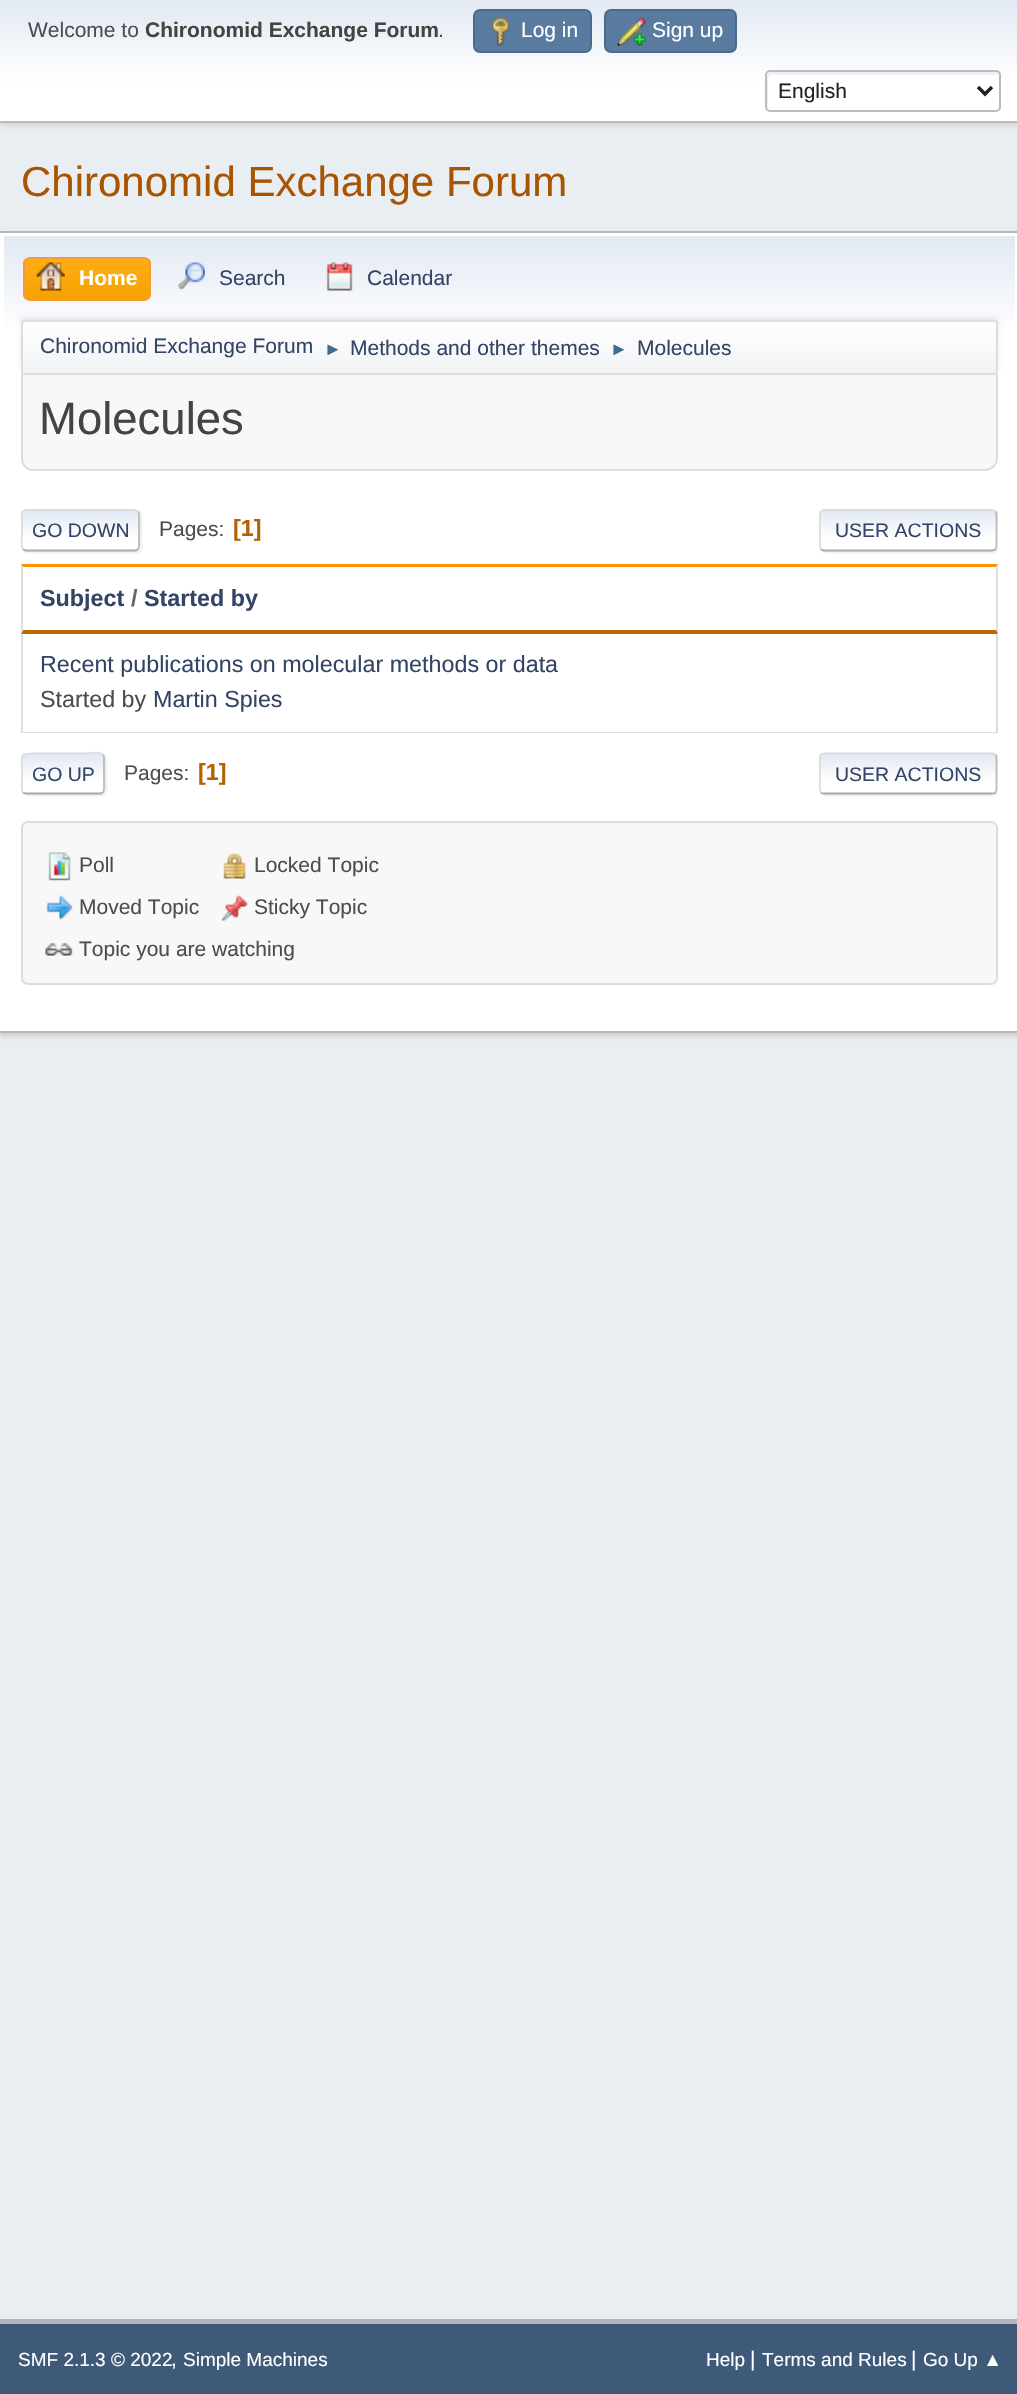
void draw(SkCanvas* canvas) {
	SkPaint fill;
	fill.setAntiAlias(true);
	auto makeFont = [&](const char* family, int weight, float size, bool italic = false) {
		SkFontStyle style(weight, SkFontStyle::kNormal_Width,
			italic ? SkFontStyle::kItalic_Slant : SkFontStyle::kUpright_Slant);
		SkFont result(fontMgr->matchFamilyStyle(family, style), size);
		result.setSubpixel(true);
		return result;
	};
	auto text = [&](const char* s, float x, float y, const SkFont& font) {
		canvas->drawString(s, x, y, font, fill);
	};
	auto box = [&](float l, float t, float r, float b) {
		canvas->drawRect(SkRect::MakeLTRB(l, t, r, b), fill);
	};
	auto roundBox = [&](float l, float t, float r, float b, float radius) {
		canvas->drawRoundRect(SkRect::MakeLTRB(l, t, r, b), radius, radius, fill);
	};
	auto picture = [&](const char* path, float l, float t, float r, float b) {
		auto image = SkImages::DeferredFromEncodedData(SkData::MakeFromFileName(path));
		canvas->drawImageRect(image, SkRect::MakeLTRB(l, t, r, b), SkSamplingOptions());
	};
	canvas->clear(0xFFE9EEF2);
	fill.setColor(0x29000000);
	fill.setMaskFilter(SkMaskFilter::MakeBlur(kNormal_SkBlurStyle, 3.5f));
	canvas->drawRect(SkRect::MakeLTRB(0, 2, 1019, 124), fill);
	fill.setMaskFilter(nullptr);
	{
		const SkColor colors[] = {0xFFE2E9F3, 0xFFFFFFFF};
		const float stops[] = {0, 0.7f};
		const SkPoint ends[] = {{509, 0}, {509, 121}};
		fill.setShader(SkGradientShader::MakeLinear(ends, colors, stops, 2, SkTileMode::kClamp));
		fill.setAlpha(255);
	}
	box(0, 0, 1017, 121);
	fill.setShader(nullptr);
	fill.setColor(0xFFBBBBBB);
	box(0, 121, 1017, 123);
	fill.setColor(0xFF597B9F);
	canvas->drawRoundRect(SkRect::MakeLTRB(474, 10, 591, 52), 6, 6, fill);
	fill.setStyle(SkPaint::kStroke_Style);
	fill.setStrokeWidth(2);
	fill.setColor(0xFF4A6B8C);
	canvas->drawRoundRect(SkRect::MakeLTRB(474, 10, 591, 52), 6, 6, fill);
	picture("image0.png", 491, 17, 510, 46);
	fill.setStyle(SkPaint::kFill_Style);
	fill.setColor(0xFF597B9F);
	canvas->drawRoundRect(SkRect::MakeLTRB(605, 10, 736, 52), 6, 6, fill);
	fill.setStyle(SkPaint::kStroke_Style);
	fill.setColor(0xFF4A6B8C);
	canvas->drawRoundRect(SkRect::MakeLTRB(605, 10, 736, 52), 6, 6, fill);
	picture("image1.png", 617, 17, 646, 46);
	fill.setStyle(SkPaint::kFill_Style);
	fill.setColor(0xFFFFFFFF);
	roundBox(765, 70, 1001, 112, 5);
	fill.setColor(0xFFECF1F8);
	canvas->drawPath(SkPathBuilder().moveTo(772, 75).lineTo(998, 75).lineTo(999, 75).cubicTo(999, 73, 997, 72, 995, 72).lineTo(771, 72).cubicTo(769, 72, 767, 74, 767, 76).lineTo(767, 106).cubicTo(767, 107, 767, 108, 768, 109).lineTo(768, 79).cubicTo(768, 77, 770, 75, 772, 75).close().detach(), fill);
	fill.setStyle(SkPaint::kStroke_Style);
	fill.setColor(0xFFBBBBBB);
	canvas->drawRoundRect(SkRect::MakeLTRB(766, 71, 1000, 111), 4, 4, fill);
	fill.setStrokeWidth(3.5f);
	fill.setColor(0xFF222222);
	canvas->drawPath(SkPathBuilder().moveTo(978, 87).lineTo(985, 94).lineTo(992, 87).detach(), fill);
	fill.setStyle(SkPaint::kFill_Style);
	fill.setColor(0x24000000);
	fill.setMaskFilter(SkMaskFilter::MakeBlur(kNormal_SkBlurStyle, 2.5f));
	canvas->drawRect(SkRect::MakeLTRB(0, 235, 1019, 1036), fill);
	fill.setMaskFilter(nullptr);
	fill.setColor(0xFFFFFFFF);
	box(0, 233, 1017, 1031);
	fill.setColor(0xFFB8B8B8);
	box(0, 231, 1017, 233);
	box(0, 1031, 1017, 1033);
	{
		const SkColor colors[] = {0xFFE2E9F3, 0xFFFFFFFF};
		const float stops[] = {0, 0.7f};
		const SkPoint ends[] = {{509, 236}, {509, 378}};
		fill.setShader(SkGradientShader::MakeLinear(ends, colors, stops, 2, SkTileMode::kClamp));
		fill.setAlpha(255);
	}
	box(4, 236, 1015, 327);
	canvas->save();
	canvas->clipPath(SkPathBuilder().moveTo(30, 257).lineTo(144, 257).cubicTo(148, 257, 151, 260, 151, 264).lineTo(151, 294).cubicTo(151, 298, 148, 301, 144, 301).lineTo(30, 301).cubicTo(26, 301, 23, 298, 23, 294).lineTo(23, 264).cubicTo(23, 260, 26, 257, 30, 257).close().detach(), true);
	{
		const SkColor colors[] = {0xFFFFAE14, 0xFFF5A100};
		const float stops[] = {0, 1};
		const SkPoint ends[] = {{87, 259}, {87, 299}};
		fill.setShader(SkGradientShader::MakeLinear(ends, colors, stops, 2, SkTileMode::kClamp));
		fill.setAlpha(255);
	}
	box(23, 259, 151, 299);
	canvas->restore();
	fill.setStyle(SkPaint::kStroke_Style);
	fill.setStrokeWidth(2);
	fill.setShader(nullptr);
	fill.setColor(0xFFF49A3A);
	canvas->drawRoundRect(SkRect::MakeLTRB(24, 258, 150, 300), 6, 6, fill);
	picture("image2.png", 36, 262, 65, 291);
	picture("image3.png", 178, 262, 205, 290);
	picture("image4.png", 326, 262, 353, 291);
	fill.setStyle(SkPaint::kFill_Style);
	fill.setColor(0x14000000);
	fill.setMaskFilter(SkMaskFilter::MakeBlur(kNormal_SkBlurStyle, 2));
	canvas->drawRoundRect(SkRect::MakeLTRB(21, 317, 998, 371), 4, 4, fill);
	fill.setMaskFilter(nullptr);
	canvas->save();
	canvas->clipPath(SkPathBuilder().moveTo(25, 320).lineTo(994, 320).cubicTo(996, 320, 998, 322, 998, 324).lineTo(998, 371).cubicTo(998, 373, 996, 375, 994, 375).lineTo(25, 375).cubicTo(23, 375, 21, 373, 21, 371).lineTo(21, 324).cubicTo(21, 322, 23, 320, 25, 320).close().detach(), true);
	{
		const SkColor colors[] = {0xFFFFFFFF, 0xFFF1F3F5};
		const float stops[] = {0, 0.95f};
		const SkPoint ends[] = {{509, 322}, {509, 373}};
		fill.setShader(SkGradientShader::MakeLinear(ends, colors, stops, 2, SkTileMode::kClamp));
		fill.setAlpha(255);
	}
	box(21, 322, 998, 373);
	canvas->restore();
	fill.setStyle(SkPaint::kStroke_Style);
	fill.setShader(nullptr);
	fill.setColor(0xFFDDDDDD);
	canvas->drawRoundRect(SkRect::MakeLTRB(22, 321, 997, 374), 3, 3, fill);
	fill.setStyle(SkPaint::kFill_Style);
	fill.setColor(0xFFF8F8F8);
	canvas->drawPath(SkPathBuilder().moveTo(21, 375).lineTo(998, 375).lineTo(998, 459).cubicTo(998, 465.5f, 992.5f, 471, 986, 471).lineTo(33, 471).cubicTo(26.5f, 471, 21, 465.5f, 21, 459).close().detach(), fill);
	fill.setColor(0xFFDDDDDD);
	canvas->drawPath(SkPathBuilder(SkPathFillType::kEvenOdd).moveTo(21, 374).lineTo(998, 374).lineTo(998, 458).cubicTo(998, 465, 992, 471, 985, 471).lineTo(33, 471).cubicTo(26, 471, 21, 465, 21, 458).close().moveTo(23, 374).lineTo(996, 374).lineTo(996, 458).cubicTo(996, 464, 991, 469, 985, 469).lineTo(33, 469).cubicTo(27, 469, 23, 464, 23, 458).close().detach(), fill);
	fill.setColor(0x91DDDDDD);
	fill.setMaskFilter(SkMaskFilter::MakeBlur(kNormal_SkBlurStyle, 1));
	canvas->drawRoundRect(SkRect::MakeLTRB(23, 511, 142, 553), 5, 5, fill);
	fill.setMaskFilter(nullptr);
	fill.setColor(0xFFFFFFFF);
	roundBox(21, 509, 140, 551, 5);
	canvas->save();
	canvas->clipPath(SkPathBuilder().moveTo(26, 509).lineTo(135, 509).cubicTo(138, 509, 140, 511, 140, 514).lineTo(140, 546).cubicTo(140, 549, 138, 551, 135, 551).lineTo(26, 551).cubicTo(23, 551, 21, 549, 21, 546).lineTo(21, 514).cubicTo(21, 511, 23, 509, 26, 509).close().detach(), true);
	{
		const SkColor colors[] = {0xFFE2E9F3, 0xFFFFFFFF};
		const float stops[] = {0, 0.7f};
		const SkPoint ends[] = {{81, 511}, {81, 550}};
		fill.setShader(SkGradientShader::MakeLinear(ends, colors, stops, 2, SkTileMode::kClamp));
		fill.setAlpha(255);
	}
	box(21, 511, 140, 550);
	canvas->restore();
	fill.setStyle(SkPaint::kStroke_Style);
	fill.setStrokeWidth(1.8f);
	fill.setShader(nullptr);
	fill.setColor(0xFFBBBBBB);
	canvas->drawPath(SkPathBuilder().moveTo(138, 511.5f).cubicTo(138.5f, 512, 139, 513.5f, 139, 514.5f).lineTo(139, 546).cubicTo(139, 547, 138.5f, 548.5f, 138, 549).detach(), fill);
	fill.setColor(0xFFAAAAAA);
	canvas->drawPath(SkPathBuilder().moveTo(138, 549).cubicTo(137, 550, 136, 550.5f, 135, 550.5f).lineTo(26, 550.5f).cubicTo(25, 550.5f, 24, 550, 23, 549).detach(), fill);
	canvas->save();
	canvas->clipRect(SkRect::MakeLTRB(21, 497, 998, 564));
	fill.setColor(0xFFDDDDDD);
	canvas->drawPath(SkPathBuilder().moveTo(23, 549).cubicTo(20.5f, 546.5f, 22, 538.5f, 22, 535.5f).lineTo(22, 520).cubicTo(22, 516.5f, 21, 510, 26, 510).lineTo(135, 510).lineTo(138, 511.5f).detach(), fill);
	canvas->restore();
	canvas->save();
	canvas->clipRect(SkRect::MakeLTRB(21, 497, 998, 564));
	fill.setStyle(SkPaint::kFill_Style);
	fill.setColor(0x91DDDDDD);
	fill.setMaskFilter(SkMaskFilter::MakeBlur(kNormal_SkBlurStyle, 1));
	canvas->drawRoundRect(SkRect::MakeLTRB(821, 511, 999, 553), 5, 5, fill);
	fill.setMaskFilter(nullptr);
	canvas->restore();
	fill.setColor(0xFFFFFFFF);
	roundBox(819, 509, 998, 551, 5);
	canvas->save();
	canvas->clipPath(SkPathBuilder().moveTo(824, 509).lineTo(993, 509).cubicTo(996, 509, 998, 511, 998, 514).lineTo(998, 546).cubicTo(998, 549, 996, 551, 993, 551).lineTo(824, 551).cubicTo(821, 551, 819, 549, 819, 546).lineTo(819, 514).cubicTo(819, 511, 821, 509, 824, 509).close().detach(), true);
	{
		const SkColor colors[] = {0xFFE2E9F3, 0xFFFFFFFF};
		const float stops[] = {0, 0.7f};
		const SkPoint ends[] = {{908, 511}, {908, 550}};
		fill.setShader(SkGradientShader::MakeLinear(ends, colors, stops, 2, SkTileMode::kClamp));
		fill.setAlpha(255);
	}
	box(819, 511, 998, 550);
	canvas->restore();
	fill.setStyle(SkPaint::kStroke_Style);
	fill.setShader(nullptr);
	fill.setColor(0xFFBBBBBB);
	canvas->drawPath(SkPathBuilder().moveTo(995.5f, 511.5f).cubicTo(996, 512, 996.5f, 513.5f, 996.5f, 514.5f).lineTo(996.5f, 546).cubicTo(996.5f, 547, 996, 548.5f, 995.5f, 549).detach(), fill);
	fill.setColor(0xFFAAAAAA);
	canvas->drawPath(SkPathBuilder().moveTo(995.5f, 549).cubicTo(994.5f, 550, 993.5f, 550.5f, 992, 550.5f).lineTo(824, 550.5f).cubicTo(823, 550.5f, 822, 550, 821, 549).detach(), fill);
	fill.setColor(0xFFDDDDDD);
	canvas->drawPath(SkPathBuilder().moveTo(821, 549).cubicTo(820.5f, 548.5f, 820, 547, 820, 546).lineTo(820, 514.5f).cubicTo(820, 513.5f, 820.5f, 512, 821, 511.5f).cubicTo(822, 510.5f, 823, 510, 824, 510).lineTo(992, 510).cubicTo(993.5f, 510, 994.5f, 510.5f, 995.5f, 511.5f).detach(), fill);
	fill.setStyle(SkPaint::kFill_Style);
	fill.setColor(0xFFFF9400);
	canvas->drawPath(SkPathBuilder().moveTo(21, 564).lineTo(998, 564).lineTo(996, 567).lineTo(23, 567).close().detach(), fill);
	fill.setColor(0xFFDDDDDD);
	canvas->drawPath(SkPathBuilder().moveTo(998, 564).lineTo(998, 634).lineTo(996, 630).lineTo(996, 567).close().detach(), fill);
	fill.setColor(0xFFBF6900);
	canvas->drawPath(SkPathBuilder().moveTo(998, 634).lineTo(21, 634).lineTo(23, 630).lineTo(996, 630).close().detach(), fill);
	fill.setColor(0xFFDDDDDD);
	canvas->drawPath(SkPathBuilder().moveTo(21, 634).lineTo(21, 564).lineTo(23, 567).lineTo(23, 630).close().detach(), fill);
	fill.setColor(0xFFDCDCDC);
	canvas->drawPath(SkPathBuilder().moveTo(998, 634).lineTo(998, 733).lineTo(996, 732).lineTo(996, 634).close().detach(), fill);
	fill.setColor(0x21000000);
	canvas->drawPath(SkPathBuilder().moveTo(998, 733).lineTo(21, 733).lineTo(23, 732).lineTo(996, 732).close().detach(), fill);
	canvas->drawPath(SkPathBuilder().moveTo(21, 733).lineTo(21, 634).lineTo(23, 634).lineTo(23, 732).close().detach(), fill);
	fill.setColor(0x91DDDDDD);
	fill.setMaskFilter(SkMaskFilter::MakeBlur(kNormal_SkBlurStyle, 1));
	canvas->drawRoundRect(SkRect::MakeLTRB(23, 754, 107, 796), 5, 5, fill);
	fill.setMaskFilter(nullptr);
	canvas->save();
	canvas->clipPath(SkPathBuilder().moveTo(26, 753).lineTo(100, 753).cubicTo(103, 753, 105, 755, 105, 758).lineTo(105, 790).cubicTo(105, 793, 103, 795, 100, 795).lineTo(26, 795).cubicTo(23, 795, 21, 793, 21, 790).lineTo(21, 758).cubicTo(21, 755, 23, 753, 26, 753).close().detach(), true);
	{
		const SkColor colors[] = {0xFFE2E9F3, 0xFFFFFFFF};
		const float stops[] = {0, 0.7f};
		const SkPoint ends[] = {{63, 754}, {63, 793}};
		fill.setShader(SkGradientShader::MakeLinear(ends, colors, stops, 2, SkTileMode::kClamp));
		fill.setAlpha(255);
	}
	box(21, 754, 105, 793);
	{
		const SkColor colors[] = {0xFFE2E9F3, 0xFFFFFFFF};
		const float stops[] = {0, 0.7f};
		const SkPoint ends[] = {{63, 793}, {63, 831}};
		fill.setShader(SkGradientShader::MakeLinear(ends, colors, stops, 2, SkTileMode::kClamp));
		fill.setAlpha(255);
	}
	box(21, 793, 105, 795);
	canvas->restore();
	fill.setStyle(SkPaint::kStroke_Style);
	fill.setShader(nullptr);
	fill.setColor(0xFFBBBBBB);
	canvas->drawPath(SkPathBuilder().moveTo(103, 754.5f).cubicTo(103.5f, 755.5f, 104, 756.5f, 104, 758).lineTo(104, 789).cubicTo(104, 790.5f, 103.5f, 791.5f, 103, 792.5f).detach(), fill);
	fill.setColor(0xFFAAAAAA);
	canvas->drawPath(SkPathBuilder().moveTo(103, 792.5f).lineTo(100, 793.5f).lineTo(26, 793.5f).lineTo(23, 792.5f).detach(), fill);
	canvas->save();
	canvas->clipRect(SkRect::MakeLTRB(21, 740, 998, 807));
	fill.setColor(0xFFDDDDDD);
	canvas->drawPath(SkPathBuilder().moveTo(23, 792.5f).cubicTo(21, 790.5f, 22, 786.5f, 22, 784).lineTo(22, 773.5f).cubicTo(22, 752, 18, 753.5f, 38.5f, 753.5f).lineTo(87.5f, 753.5f).cubicTo(87.5f, 753.5f, 99.5f, 751.5f, 103, 754.5f).detach(), fill);
	canvas->restore();
	canvas->save();
	canvas->clipRect(SkRect::MakeLTRB(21, 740, 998, 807));
	fill.setStyle(SkPaint::kFill_Style);
	fill.setColor(0x91DDDDDD);
	fill.setMaskFilter(SkMaskFilter::MakeBlur(kNormal_SkBlurStyle, 1));
	canvas->drawRoundRect(SkRect::MakeLTRB(821, 754, 999, 796), 5, 5, fill);
	fill.setMaskFilter(nullptr);
	canvas->restore();
	canvas->save();
	canvas->clipPath(SkPathBuilder().moveTo(824, 753).lineTo(993, 753).cubicTo(996, 753, 998, 755, 998, 758).lineTo(998, 790).cubicTo(998, 793, 996, 795, 993, 795).lineTo(824, 795).cubicTo(821, 795, 819, 793, 819, 790).lineTo(819, 758).cubicTo(819, 755, 821, 753, 824, 753).close().detach(), true);
	{
		const SkColor colors[] = {0xFFE2E9F3, 0xFFFFFFFF};
		const float stops[] = {0, 0.7f};
		const SkPoint ends[] = {{908, 754}, {908, 793}};
		fill.setShader(SkGradientShader::MakeLinear(ends, colors, stops, 2, SkTileMode::kClamp));
		fill.setAlpha(255);
	}
	box(819, 754, 998, 793);
	{
		const SkColor colors[] = {0xFFE2E9F3, 0xFFFFFFFF};
		const float stops[] = {0, 0.7f};
		const SkPoint ends[] = {{908, 793}, {908, 831}};
		fill.setShader(SkGradientShader::MakeLinear(ends, colors, stops, 2, SkTileMode::kClamp));
		fill.setAlpha(255);
	}
	box(819, 793, 998, 795);
	canvas->restore();
	fill.setStyle(SkPaint::kStroke_Style);
	fill.setShader(nullptr);
	fill.setColor(0xFFBBBBBB);
	canvas->drawPath(SkPathBuilder().moveTo(995.5f, 754.5f).cubicTo(996, 755.5f, 996.5f, 756.5f, 996.5f, 758).lineTo(996.5f, 789).cubicTo(996.5f, 790.5f, 996, 791.5f, 995.5f, 792.5f).detach(), fill);
	fill.setColor(0xFFAAAAAA);
	canvas->drawPath(SkPathBuilder().moveTo(995.5f, 792.5f).cubicTo(994.5f, 793, 993.5f, 793.5f, 992, 793.5f).lineTo(824, 793.5f).cubicTo(823, 793.5f, 822, 793, 821, 792.5f).detach(), fill);
	fill.setColor(0xFFDDDDDD);
	canvas->drawPath(SkPathBuilder().moveTo(821, 792.5f).cubicTo(820.5f, 791.5f, 820, 790.5f, 820, 789).lineTo(820, 758).cubicTo(820, 756.5f, 820.5f, 755.5f, 821, 754.5f).cubicTo(822, 754, 823, 753.5f, 824, 753.5f).lineTo(992, 753.5f).cubicTo(993.5f, 753.5f, 994.5f, 754, 995.5f, 754.5f).detach(), fill);
	fill.setStyle(SkPaint::kFill_Style);
	fill.setColor(0xFFF8F8F8);
	canvas->drawRoundRect(SkRect::MakeLTRB(22, 822, 997, 984), 6, 6, fill);
	fill.setStyle(SkPaint::kStroke_Style);
	fill.setStrokeWidth(2);
	fill.setColor(0xFFDDDDDD);
	canvas->drawRoundRect(SkRect::MakeLTRB(22, 822, 997, 984), 6, 6, fill);
	picture("image5.png", 223, 853, 246, 879);
	picture("image6.png", 221, 895, 248, 921);
	picture("image7.png", 45, 942, 73, 956);
	picture("image8.png", 48, 852, 71, 881);
	picture("image9.png", 46, 895, 73, 920);
	fill.setStyle(SkPaint::kFill_Style);
	fill.setColor(0xFF3E5A78);
	box(0, 2324, 1017, 2394);
	fill.setColor(0xFFB2B6BD);
	box(0, 2319, 1017, 2324);
	auto font1 = makeFont("Liberation Sans", 400, 21);
	fill.setColor(0xFF4D4D4D);
	text("Welcome to", 28, 37, font1);
	auto font2 = makeFont("Liberation Sans", 700, 21);
	fill.setColor(0xFF444444);
	text("Chironomid Exchange Forum", 145, 37, font2);
	fill.setColor(0xFF4D4D4D);
	text(".", 438, 37, font1);
	fill.setColor(0xFFFFFFFF);
	text("Log in", 521, 37, font1);
	text("Sign up", 652, 37, font1);
	fill.setColor(0xFF222222);
	text("English", 778, 98, font1);
	auto font3 = makeFont("Liberation Sans", 400, 42);
	fill.setColor(0xFFA85400);
	text("Chironomid Exchange Forum", 21, 196, font3);
	fill.setColor(0xFFFFFFFF);
	text("Home", 79, 285, font2);
	fill.setColor(0xFF334466);
	text("Search", 219, 285, font1);
	text("Calendar", 367, 285, font1);
	text("Chironomid Exchange Forum", 40, 353, font1);
	auto font4 = makeFont("Liberation Sans", 400, 18);
	fill.setColor(0xFF3F6B8C);
	text("►", 324, 355, font4);
	fill.setColor(0xFF334466);
	text("Methods and other themes", 350, 355, font1);
	fill.setColor(0xFF3F6B8C);
	text("►", 610, 355, font4);
	fill.setColor(0xFF334466);
	text("Molecules", 637, 355, font1);
	auto font5 = makeFont("Liberation Sans", 400, 45.5f);
	fill.setColor(0xFF444444);
	text("Molecules", 39, 434, font5);
	auto font6 = makeFont("Liberation Sans", 400, 19.5f);
	fill.setColor(0xFF334466);
	text("GO DOWN", 32, 537, font6);
	fill.setColor(0xFF4D4D4D);
	text("Pages:", 159, 536, font1);
	auto font7 = makeFont("Liberation Sans", 700, 23.3f);
	fill.setColor(0xFFB46100);
	text("[1]", 233, 536, font7);
	fill.setColor(0xFF334466);
	text("USER ACTIONS", 835, 537, font6);
	text("Subject", 40, 606, font7);
	fill.setColor(0xFF666666);
	text("/", 131, 606, font7);
	fill.setColor(0xFF334466);
	text("Started by", 144, 606, font7);
	auto font8 = makeFont("Liberation Sans", 400, 23.3f);
	text("Recent publications on molecular methods or data", 40, 672, font8);
	fill.setColor(0xFF4D4D4D);
	text("Started by", 40, 707, font8);
	fill.setColor(0xFF334466);
	text("Martin Spies", 153, 707, font8);
	text("GO UP", 32, 781, font6);
	fill.setColor(0xFF4D4D4D);
	text("Pages:", 124, 780, font1);
	fill.setColor(0xFFB46100);
	text("[1]", 198, 780, font7);
	fill.setColor(0xFF334466);
	text("USER ACTIONS", 835, 781, font6);
	fill.setColor(0xFF4D4D4D);
	text("Locked Topic", 254, 872, font1);
	text("Sticky Topic", 254, 914, font1);
	text("Topic you are watching", 79, 956, font1);
	text("Poll", 79, 872, font1);
	text("Moved Topic", 79, 914, font1);
	auto font9 = makeFont("Liberation Sans", 400, 19);
	fill.setColor(0xFFFFFFFF);
	text("SMF 2.1.3 © 2022", 18, 2366, font9);
	text(",", 171, 2366, font1);
	text("Simple Machines", 183, 2366, font9);
	text("Help", 706, 2366, font9);
	text("|", 750, 2366, font1);
	text("Terms and Rules", 762, 2366, font9);
	text("|", 911, 2366, font1);
	text("Go Up ▲", 923, 2366, font9);
}
